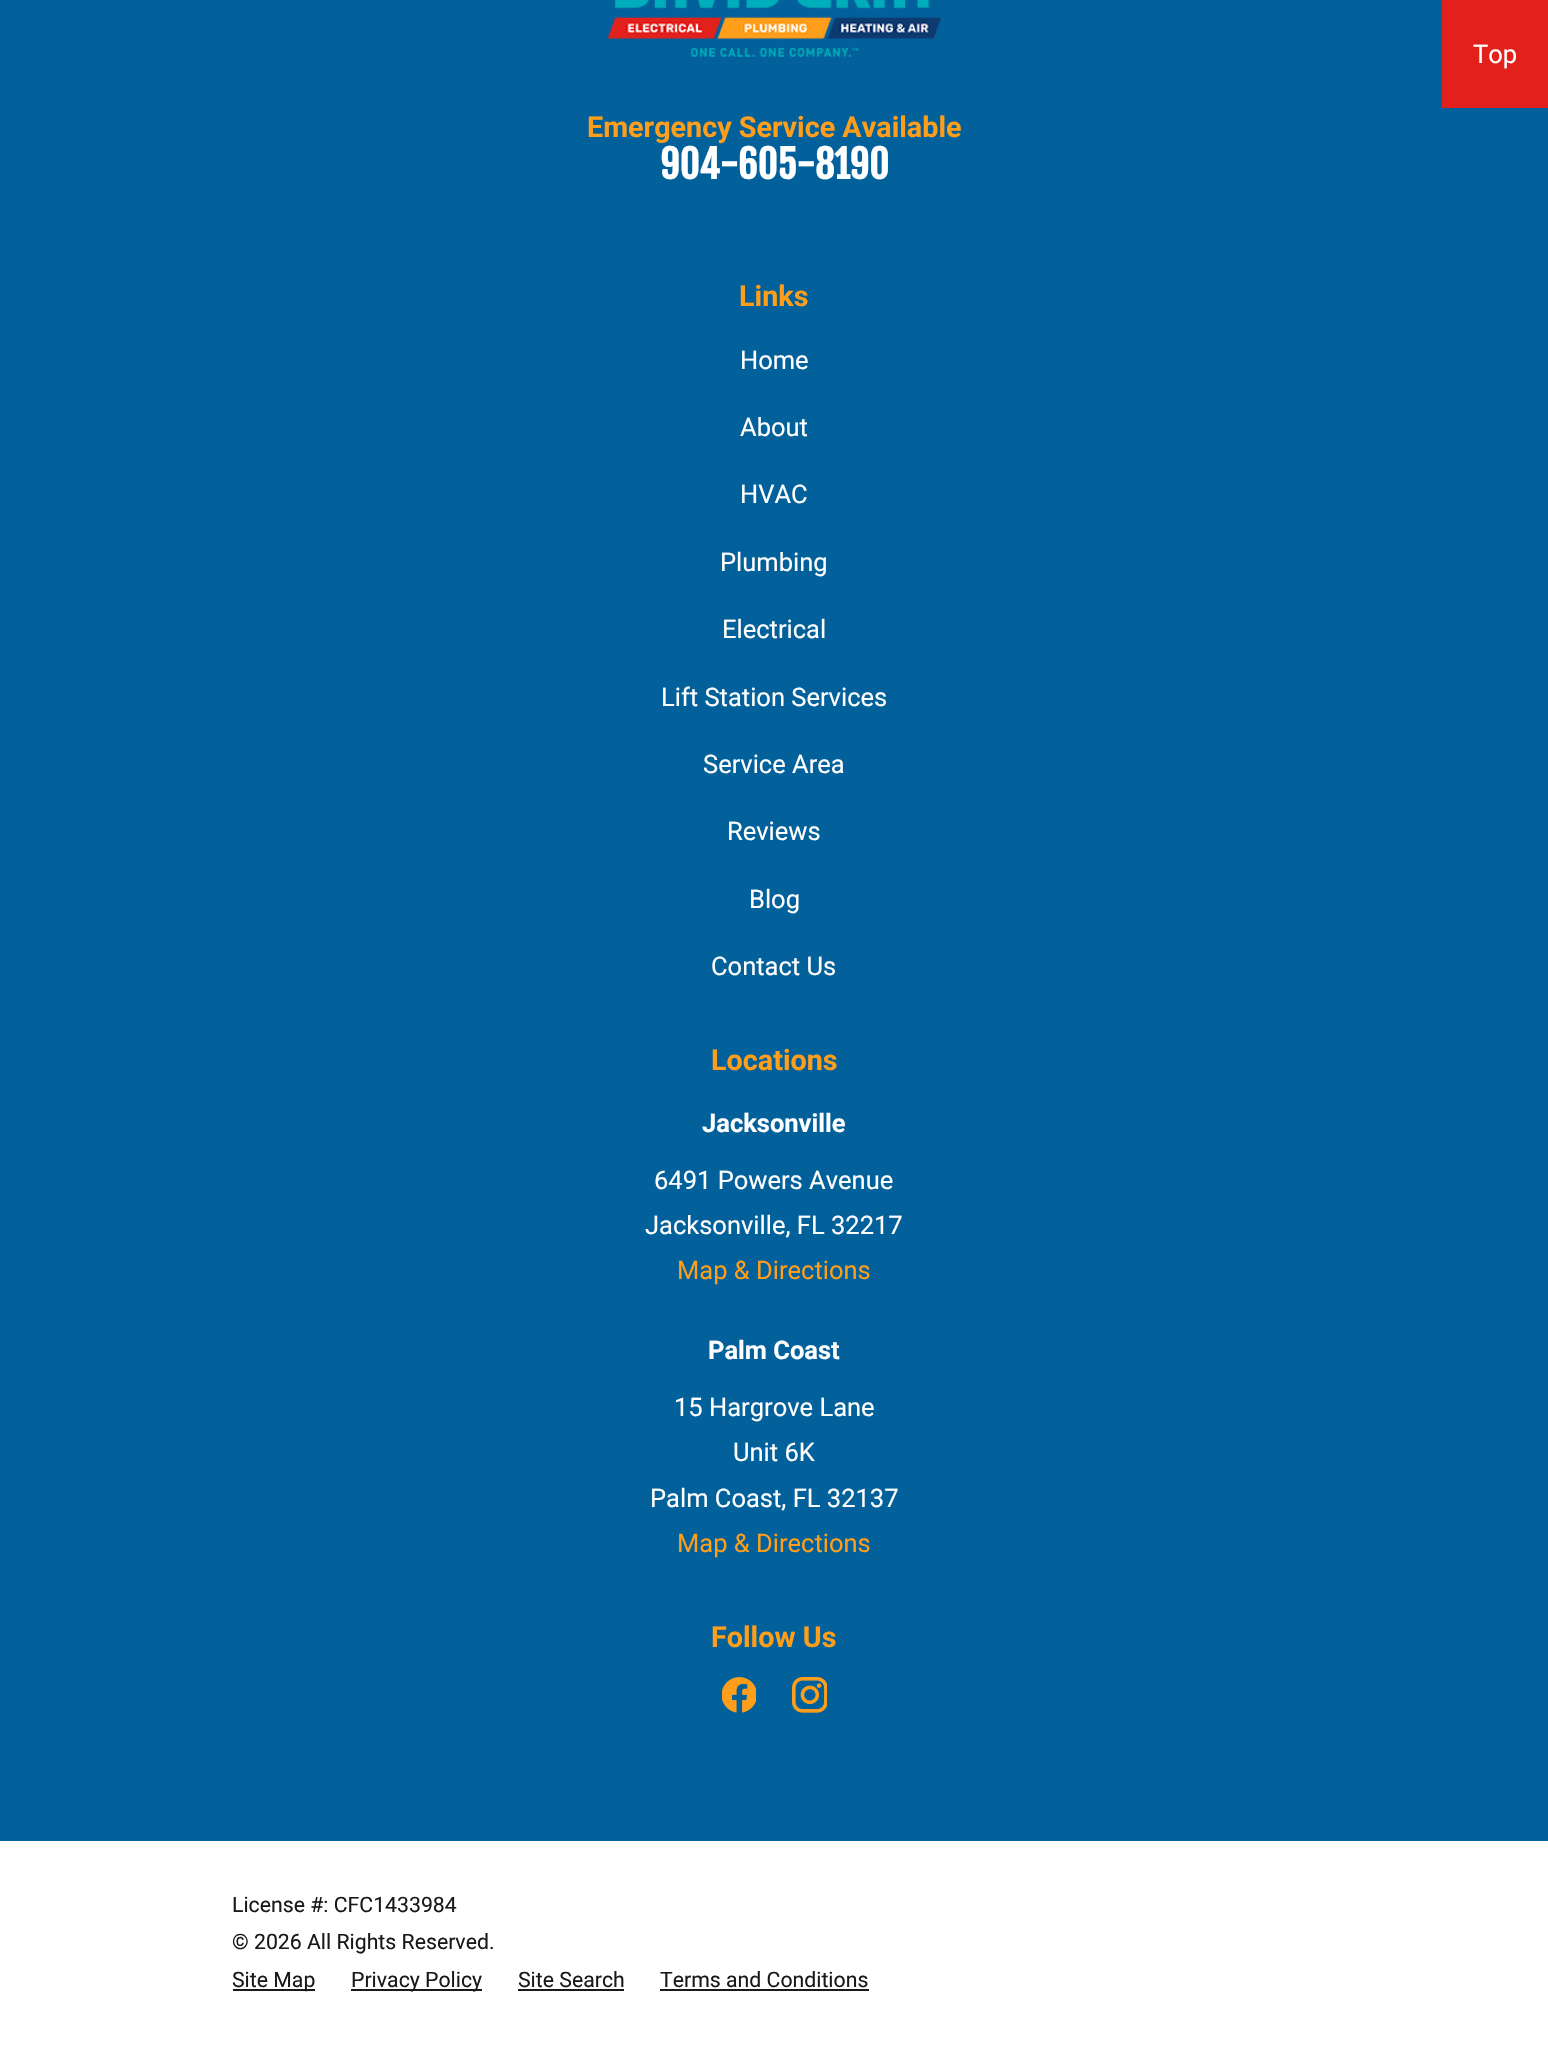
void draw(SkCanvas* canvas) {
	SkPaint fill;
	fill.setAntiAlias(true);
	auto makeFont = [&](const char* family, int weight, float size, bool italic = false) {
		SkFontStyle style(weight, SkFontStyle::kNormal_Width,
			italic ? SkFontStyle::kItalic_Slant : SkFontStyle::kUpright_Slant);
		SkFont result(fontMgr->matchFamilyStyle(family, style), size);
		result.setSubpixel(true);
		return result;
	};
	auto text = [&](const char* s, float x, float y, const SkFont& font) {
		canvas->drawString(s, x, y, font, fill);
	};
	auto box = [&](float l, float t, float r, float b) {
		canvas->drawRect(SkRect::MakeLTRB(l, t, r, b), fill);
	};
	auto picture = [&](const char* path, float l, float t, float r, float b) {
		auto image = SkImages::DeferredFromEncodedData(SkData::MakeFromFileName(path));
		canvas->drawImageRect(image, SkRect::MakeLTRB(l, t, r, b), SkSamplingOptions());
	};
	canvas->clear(0xFFFFFFFF);
	fill.setColor(0xFF02609B);
	box(0, 0, 1548, 1841);
	fill.setColor(0xFFE2211C);
	box(1442, 0, 1548, 108);
	picture("image0.png", 607, 0, 941, 57);
	picture("image1.png", 722, 1677, 756, 1713);
	picture("image2.png", 792, 1677, 827, 1713);
	fill.setColor(0xFF191919);
	box(233, 1989, 315, 1991);
	box(351, 1989, 482, 1991);
	box(518, 1989, 624, 1991);
	box(660, 1989, 869, 1991);
	auto font1 = makeFont("Roboto", 400, 25.5f);
	fill.setColor(0xFFFFFFFF);
	text("Top", 1473, 63, font1);
	auto font2 = makeFont("Roboto", 700, 28.75f);
	fill.setColor(0xFFFF9E1A);
	text("Emergency Service Available", 587, 137, font2);
	auto font3 = makeFont("Fjalla One", 700, 38.25f);
	fill.setColor(0xFFFFFFFF);
	text("904-605-8190", 660, 179, font3);
	fill.setColor(0xFFFF9E1A);
	text("Links", 739, 306, font2);
	fill.setColor(0xFFFFFFFF);
	text("Home", 740, 369, font1);
	text("About", 740, 436, font1);
	text("HVAC", 740, 503, font1);
	text("Plumbing", 720, 571, font1);
	text("Electrical", 722, 638, font1);
	text("Lift Station Services", 661, 706, font1);
	text("Service Area", 703, 773, font1);
	text("Reviews", 727, 840, font1);
	text("Blog", 749, 908, font1);
	text("Contact Us", 711, 975, font1);
	fill.setColor(0xFFFF9E1A);
	text("Locations", 711, 1070, font2);
	auto font4 = makeFont("Roboto", 700, 25.5f);
	fill.setColor(0xFFFFFFFF);
	text("Jacksonville", 702, 1132, font4);
	text("6491 Powers Avenue", 654, 1189, font1);
	text("Jacksonville, FL 32217", 645, 1234, font1);
	fill.setColor(0xFFFF9E1A);
	text("Map & Directions", 677, 1279, font1);
	fill.setColor(0xFFFFFFFF);
	text("Palm Coast", 708, 1359, font4);
	text("15 Hargrove Lane", 674, 1416, font1);
	text("Unit 6K", 733, 1461, font1);
	text("Palm Coast, FL 32137", 650, 1507, font1);
	fill.setColor(0xFFFF9E1A);
	text("Map & Directions", 677, 1552, font1);
	text("Follow Us", 711, 1647, font2);
	auto font5 = makeFont("Roboto", 400, 21.25f);
	fill.setColor(0xFF191919);
	text("License #: CFC1433984", 232, 1912, font5);
	text("© 2026 All Rights Reserved.", 232, 1949, font5);
	text("Site Map", 232, 1987, font5);
	text("Privacy Policy", 351, 1987, font5);
	text("Site Search", 518, 1987, font5);
	text("Terms and Conditions", 660, 1987, font5);
}
